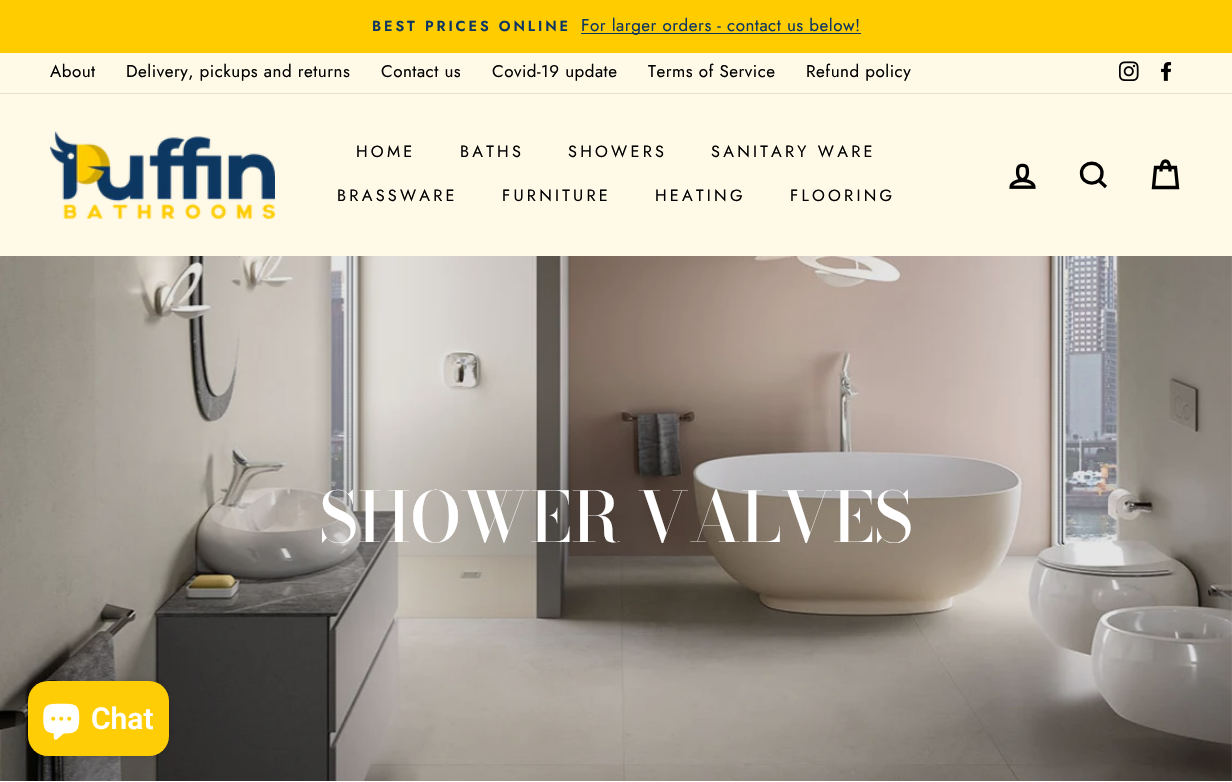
void draw(SkCanvas* canvas) {
	SkPaint fill;
	fill.setAntiAlias(true);
	auto makeFont = [&](const char* family, int weight, float size, bool italic = false) {
		SkFontStyle style(weight, SkFontStyle::kNormal_Width,
			italic ? SkFontStyle::kItalic_Slant : SkFontStyle::kUpright_Slant);
		SkFont result(fontMgr->matchFamilyStyle(family, style), size);
		result.setSubpixel(true);
		return result;
	};
	auto text = [&](const char* s, float x, float y, const SkFont& font) {
		canvas->drawString(s, x, y, font, fill);
	};
	auto spacedText = [&](const char* s, float x, float y, const SkFont& font, const SkPaint& ink, float letter, float word) {
		std::vector<SkGlyphID> glyphs(font.countText(s, strlen(s), SkTextEncoding::kUTF8));
		std::vector<float> xs(glyphs.size());
		font.textToGlyphs(s, strlen(s), SkTextEncoding::kUTF8, glyphs);
		font.getXPos(glyphs, xs, x);
		float extra = 0;
		for (size_t i = 0; i < glyphs.size(); i++) {
			xs[i] += extra;
			extra += letter + word * (glyphs[i] == font.unicharToGlyph(' '));
		}
		canvas->drawTextBlob(SkTextBlob::MakeFromPosHGlyphs(glyphs, xs, y, font), 0, 0, ink);
	};
	auto box = [&](float l, float t, float r, float b) {
		canvas->drawRect(SkRect::MakeLTRB(l, t, r, b), fill);
	};
	auto roundBox = [&](float l, float t, float r, float b, float radius) {
		canvas->drawRoundRect(SkRect::MakeLTRB(l, t, r, b), radius, radius, fill);
	};
	auto picture = [&](const char* path, float l, float t, float r, float b) {
		auto image = SkImages::DeferredFromEncodedData(SkData::MakeFromFileName(path));
		canvas->drawImageRect(image, SkRect::MakeLTRB(l, t, r, b), SkSamplingOptions());
	};
	canvas->clear(0xFFFFFFFF);
	fill.setColor(0xFFFFCC00);
	box(0, 0, 1232, 53);
	fill.setColor(0xFF0C3561);
	box(581, 33, 861, 34);
	fill.setColor(0xFFFFF9E7);
	box(0, 53, 1232, 93);
	picture("image0.png", 1119, 61, 1139, 81);
	picture("image1.png", 1161, 62, 1172, 81);
	box(0, 94, 1232, 256);
	fill.setColor(0xFFE6E0D0);
	box(0, 93, 1232, 94);
	picture("image2.png", 50, 131, 275, 219);
	picture("image3.png", 1009, 163, 1036, 189);
	fill.setStyle(SkPaint::kStroke_Style);
	fill.setStrokeWidth(3.3f);
	fill.setColor(0xFF000000);
	canvas->drawPath(SkPathBuilder().moveTo(1102, 173).cubicTo(1102, 186.5f, 1081.5f, 186.5f, 1081.5f, 173).cubicTo(1081.5f, 160, 1102, 160, 1102, 173).close().moveTo(1106, 187).lineTo(1099, 180.5f).detach(), fill);
	canvas->drawPath(SkPathBuilder().moveTo(1161, 171.5f).cubicTo(1161, 163, 1163, 161, 1165.5f, 161).cubicTo(1168, 161, 1170, 163, 1170, 171.5f).moveTo(1155.5f, 167.5f).lineTo(1175.5f, 167.5f).lineTo(1177.5f, 187.5f).lineTo(1153.5f, 187.5f).close().detach(), fill);
	picture("image4.png", 0, 256, 1232, 781);
	fill.setStyle(SkPaint::kFill_Style);
	fill.setColor(0x26000000);
	fill.setMaskFilter(SkMaskFilter::MakeBlur(kNormal_SkBlurStyle, 3));
	canvas->drawRoundRect(SkRect::MakeLTRB(28, 681, 169, 756), 20, 20, fill);
	fill.setMaskFilter(nullptr);
	fill.setColor(0xFFFFCD05);
	roundBox(28, 681, 169, 756, 20);
	picture("image5.png", 43, 703, 80, 740);
	auto font1 = makeFont("Jost", 600, 14.5f);
	fill.setColor(0xFF0C3561);
	spacedText("BEST PRICES ONLINE", 372, 31, font1, fill, 2.9f, 0);
	auto font2 = makeFont("Jost", 400, 17);
	spacedText("For larger orders - contact us below!", 581, 31, font2, fill, 0.5f, 0);
	fill.setColor(0xFF000000);
	spacedText("About", 50, 77, font2, fill, 0.5f, 0);
	spacedText("Delivery, pickups and returns", 126, 77, font2, fill, 0.5f, 0);
	spacedText("Contact us", 381, 77, font2, fill, 0.5f, 0);
	spacedText("Covid-19 update", 492, 77, font2, fill, 0.5f, 0);
	spacedText("Terms of Service", 648, 77, font2, fill, 0.5f, 0);
	spacedText("Refund policy", 806, 77, font2, fill, 0.5f, 0);
	auto font3 = makeFont("Jost", 400, 16.25f);
	spacedText("HOME", 356, 157, font3, fill, 3.25f, 0);
	spacedText("BATHS", 460, 157, font3, fill, 3.25f, 0);
	spacedText("SHOWERS", 568, 157, font3, fill, 3.25f, 0);
	spacedText("SANITARY WARE", 711, 157, font3, fill, 3.25f, 0);
	spacedText("BRASSWARE", 337, 201, font3, fill, 3.25f, 0);
	spacedText("FURNITURE", 502, 201, font3, fill, 3.25f, 0);
	spacedText("HEATING", 655, 201, font3, fill, 3.25f, 0);
	spacedText("FLOORING", 790, 201, font3, fill, 3.25f, 0);
	auto font4 = makeFont("Bodoni Moda", 500, 68.9f);
	fill.setColor(0xFFFFFFFF);
	text("SHOWER VALVES", 319, 542, font4);
	auto font5 = makeFont("Roboto", 600, 30);
	text("Chat", 91, 729, font5);
}
